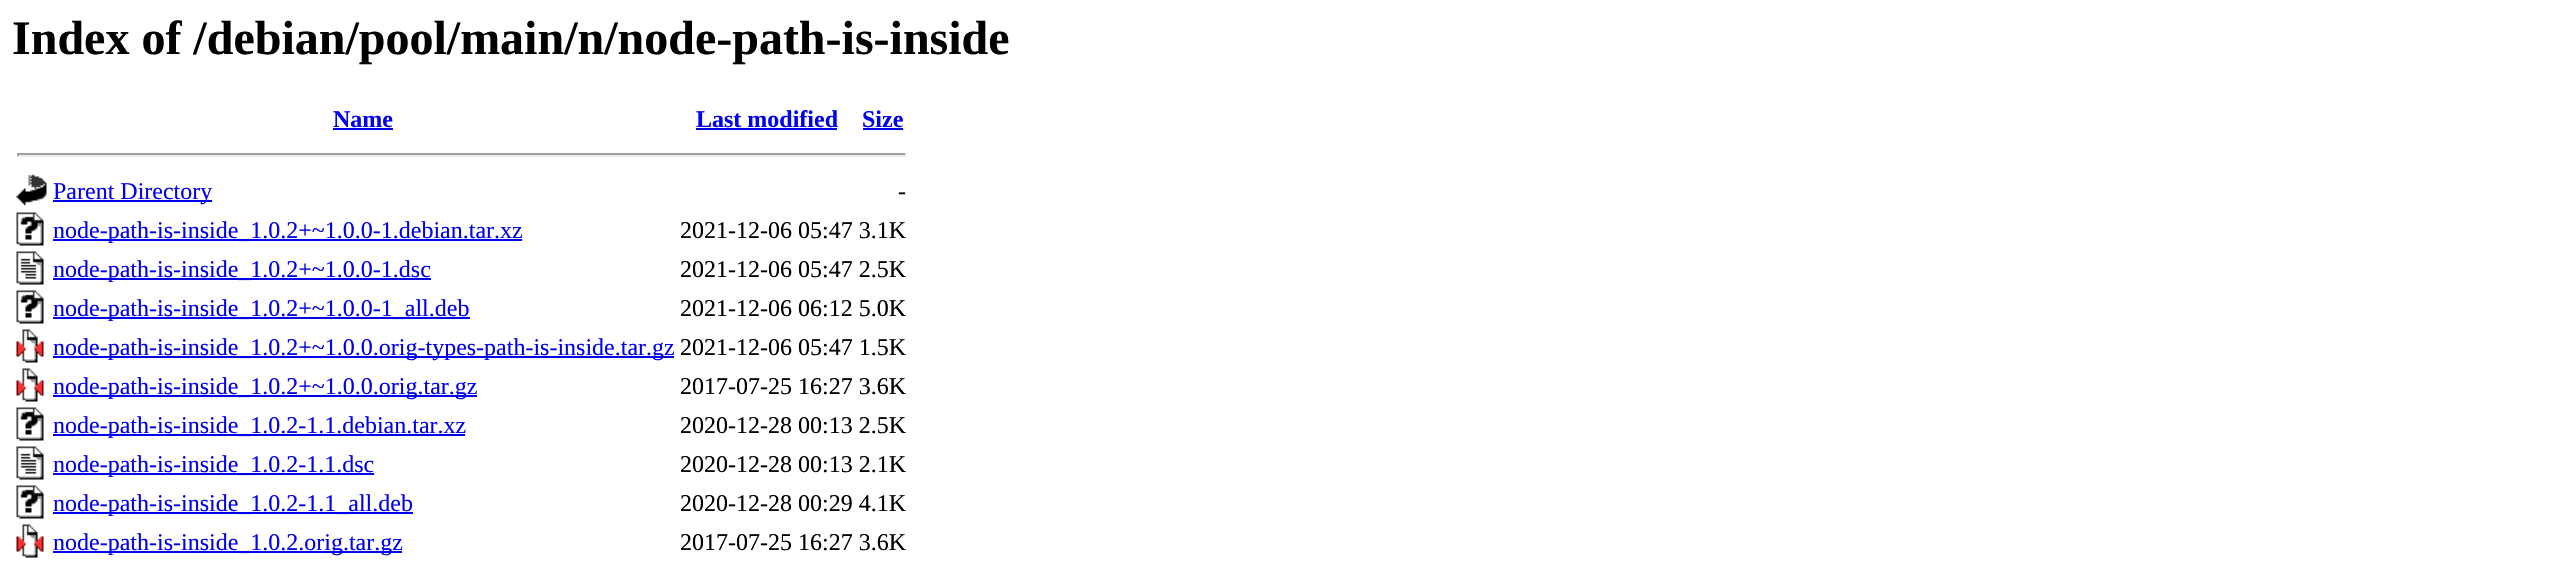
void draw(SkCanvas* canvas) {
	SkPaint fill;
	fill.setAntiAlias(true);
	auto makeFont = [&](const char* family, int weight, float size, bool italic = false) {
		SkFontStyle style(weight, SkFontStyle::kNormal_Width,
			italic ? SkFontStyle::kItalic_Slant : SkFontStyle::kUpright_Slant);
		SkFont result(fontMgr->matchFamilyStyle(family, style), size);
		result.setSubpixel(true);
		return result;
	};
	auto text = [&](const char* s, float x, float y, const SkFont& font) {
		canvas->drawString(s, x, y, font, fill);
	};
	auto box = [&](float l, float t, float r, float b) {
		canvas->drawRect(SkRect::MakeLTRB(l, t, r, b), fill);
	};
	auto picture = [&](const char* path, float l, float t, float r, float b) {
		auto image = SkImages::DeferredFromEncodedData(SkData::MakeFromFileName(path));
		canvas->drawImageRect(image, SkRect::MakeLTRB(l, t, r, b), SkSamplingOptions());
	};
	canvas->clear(0xFFFFFFFF);
	fill.setColor(0xFF0000EE);
	box(333, 128, 393, 130);
	box(696, 128, 837, 130);
	box(863, 128, 903, 130);
	fill.setColor(0xFF9F9F9F);
	box(17, 153, 906, 155);
	fill.setColor(0xFFEEEEEE);
	box(905, 153, 907, 156);
	box(17, 155, 906, 157);
	fill.setColor(0xFF9F9F9F);
	box(17, 153, 19, 156);
	picture("image0.png", 16, 174, 47, 206);
	fill.setColor(0xFF0000EE);
	box(53, 200, 212, 202);
	picture("image1.png", 16, 212, 44, 246);
	box(53, 239, 522, 241);
	picture("image2.png", 16, 251, 44, 285);
	box(53, 278, 431, 280);
	picture("image1.png", 16, 290, 44, 324);
	box(53, 317, 470, 319);
	picture("image3.png", 16, 329, 44, 363);
	box(53, 356, 674, 358);
	picture("image3.png", 16, 368, 44, 402);
	box(53, 395, 477, 397);
	picture("image1.png", 16, 407, 44, 441);
	box(53, 434, 465, 436);
	picture("image2.png", 16, 446, 44, 480);
	box(53, 473, 374, 475);
	picture("image1.png", 16, 485, 44, 519);
	box(53, 512, 413, 514);
	picture("image3.png", 16, 524, 44, 558);
	box(53, 551, 402, 553);
	auto font1 = makeFont("Liberation Serif", 700, 48);
	fill.setColor(0xFF000000);
	text("Index of /debian/pool/main/n/node-path-is-inside", 12, 54, font1);
	auto font2 = makeFont("Liberation Serif", 700, 24);
	fill.setColor(0xFF0000EE);
	text("Name", 333, 127, font2);
	text("Last modified", 696, 127, font2);
	text("Size", 862, 127, font2);
	auto font3 = makeFont("Liberation Serif", 400, 24);
	text("Parent Directory", 53, 199, font3);
	fill.setColor(0xFF000000);
	text("-", 898, 199, font3);
	fill.setColor(0xFF0000EE);
	text("node-path-is-inside_1.0.2+~1.0.0-1.debian.tar.xz", 53, 238, font3);
	fill.setColor(0xFF000000);
	text("2021-12-06 05:47 3.1K", 680, 238, font3);
	fill.setColor(0xFF0000EE);
	text("node-path-is-inside_1.0.2+~1.0.0-1.dsc", 53, 277, font3);
	fill.setColor(0xFF000000);
	text("2021-12-06 05:47 2.5K", 680, 277, font3);
	fill.setColor(0xFF0000EE);
	text("node-path-is-inside_1.0.2+~1.0.0-1_all.deb", 53, 316, font3);
	fill.setColor(0xFF000000);
	text("2021-12-06 06:12 5.0K", 680, 316, font3);
	fill.setColor(0xFF0000EE);
	text("node-path-is-inside_1.0.2+~1.0.0.orig-types-path-is-inside.tar.gz", 53, 355, font3);
	fill.setColor(0xFF000000);
	text("2021-12-06 05:47 1.5K", 680, 355, font3);
	fill.setColor(0xFF0000EE);
	text("node-path-is-inside_1.0.2+~1.0.0.orig.tar.gz", 53, 394, font3);
	fill.setColor(0xFF000000);
	text("2017-07-25 16:27 3.6K", 680, 394, font3);
	fill.setColor(0xFF0000EE);
	text("node-path-is-inside_1.0.2-1.1.debian.tar.xz", 53, 433, font3);
	fill.setColor(0xFF000000);
	text("2020-12-28 00:13 2.5K", 680, 433, font3);
	fill.setColor(0xFF0000EE);
	text("node-path-is-inside_1.0.2-1.1.dsc", 53, 472, font3);
	fill.setColor(0xFF000000);
	text("2020-12-28 00:13 2.1K", 680, 472, font3);
	fill.setColor(0xFF0000EE);
	text("node-path-is-inside_1.0.2-1.1_all.deb", 53, 511, font3);
	fill.setColor(0xFF000000);
	text("2020-12-28 00:29 4.1K", 680, 511, font3);
	fill.setColor(0xFF0000EE);
	text("node-path-is-inside_1.0.2.orig.tar.gz", 53, 550, font3);
	fill.setColor(0xFF000000);
	text("2017-07-25 16:27 3.6K", 680, 550, font3);
}
